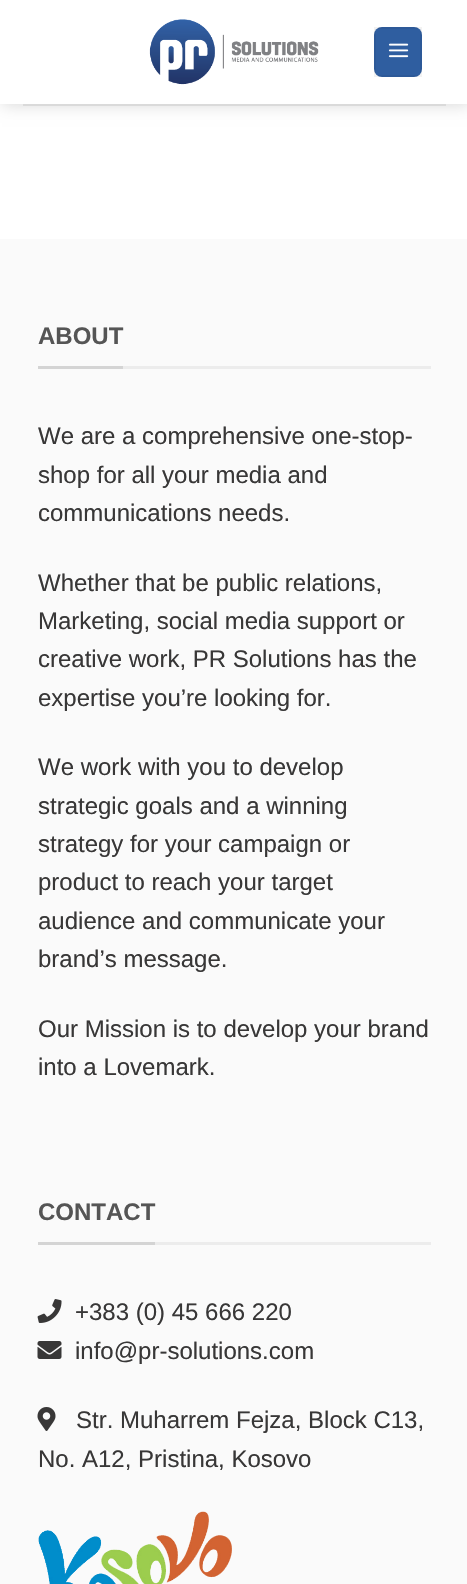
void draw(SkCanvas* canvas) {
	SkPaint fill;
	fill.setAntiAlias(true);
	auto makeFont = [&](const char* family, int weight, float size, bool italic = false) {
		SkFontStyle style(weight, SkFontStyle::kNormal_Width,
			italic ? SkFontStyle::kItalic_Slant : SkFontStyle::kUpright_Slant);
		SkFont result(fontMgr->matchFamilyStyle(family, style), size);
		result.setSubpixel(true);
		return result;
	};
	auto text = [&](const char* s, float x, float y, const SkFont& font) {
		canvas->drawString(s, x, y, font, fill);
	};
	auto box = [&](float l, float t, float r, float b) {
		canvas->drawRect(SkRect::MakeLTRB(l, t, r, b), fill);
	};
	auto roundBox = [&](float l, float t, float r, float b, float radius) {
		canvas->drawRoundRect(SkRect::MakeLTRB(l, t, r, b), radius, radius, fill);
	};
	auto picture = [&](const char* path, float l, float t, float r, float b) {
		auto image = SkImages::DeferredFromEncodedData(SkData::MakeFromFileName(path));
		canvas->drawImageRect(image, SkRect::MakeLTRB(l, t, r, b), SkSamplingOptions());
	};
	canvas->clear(0xFFFFFFFF);
	canvas->save();
	canvas->clipPath(SkPathBuilder(SkPathFillType::kEvenOdd).moveTo(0, 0).lineTo(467, 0).lineTo(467, 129).lineTo(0, 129).close().moveTo(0, 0).lineTo(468, 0).lineTo(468, 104).lineTo(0, 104).close().detach(), true);
	fill.setColor(0x26000000);
	fill.setMaskFilter(SkMaskFilter::MakeBlur(kNormal_SkBlurStyle, 7.5f));
	canvas->drawRect(SkRect::MakeLTRB(2, 2, 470, 105), fill);
	fill.setMaskFilter(nullptr);
	canvas->restore();
	picture("image0.png", 149, 19, 319, 85);
	fill.setColor(0xFF2F5EA0);
	roundBox(374, 27, 422, 77, 8);
	fill.setStyle(SkPaint::kStroke_Style);
	fill.setStrokeWidth(2);
	fill.setColor(0x0D000000);
	canvas->drawRect(SkRect::MakeLTRB(375, 28, 421, 76), fill);
	picture("image1.png", 388, 43, 409, 58);
	fill.setStyle(SkPaint::kFill_Style);
	fill.setColor(0xFFDADADA);
	box(23, 104, 446, 106);
	fill.setColor(0xE6FFFFFF);
	box(0, 103, 467, 104);
	fill.setColor(0xFFFAFAFA);
	box(0, 239, 467, 1584);
	fill.setColor(0xFFECECEC);
	box(123, 366, 431, 369);
	fill.setColor(0xFFD4D4D4);
	box(38, 366, 123, 369);
	fill.setColor(0xFFECECEC);
	box(155, 1242, 431, 1245);
	fill.setColor(0xFFD4D4D4);
	box(38, 1242, 155, 1245);
	picture("image2.png", 37, 1299, 62, 1323);
	picture("image3.png", 37, 1341, 62, 1359);
	picture("image4.png", 37, 1407, 56, 1431);
	picture("image5.png", 38, 1511, 232, 1584);
	auto font1 = makeFont("Liberation Sans", 700, 24);
	fill.setColor(0xFF555555);
	text("ABOUT", 38, 344, font1);
	auto font2 = makeFont("Liberation Sans", 400, 24);
	fill.setColor(0xFF383737);
	text("We are a comprehensive one-stop-", 38, 444, font2);
	text("shop for all your media and", 38, 483, font2);
	text("communications needs.", 38, 521, font2);
	text("Whether that be public relations,", 38, 591, font2);
	text("Marketing, social media support or", 38, 629, font2);
	text("creative work, PR Solutions has the", 38, 667, font2);
	text("expertise you’re looking for.", 38, 706, font2);
	text("We work with you to develop", 38, 775, font2);
	text("strategic goals and a winning", 38, 814, font2);
	text("strategy for your campaign or", 38, 852, font2);
	text("product to reach your target", 38, 890, font2);
	text("audience and communicate your", 38, 929, font2);
	text("brand’s message.", 38, 967, font2);
	text("Our Mission is to develop your brand", 38, 1037, font2);
	text("into a Lovemark.", 38, 1075, font2);
	fill.setColor(0xFF555555);
	text("CONTACT", 38, 1220, font1);
	fill.setColor(0xFF383737);
	text("+383 (0) 45 666 220", 75, 1320, font2);
	text("info@pr-solutions.com", 75, 1359, font2);
	text("Str. Muharrem Fejza, Block C13,", 76, 1428, font2);
	text("No. A12, Pristina, Kosovo", 38, 1467, font2);
}
